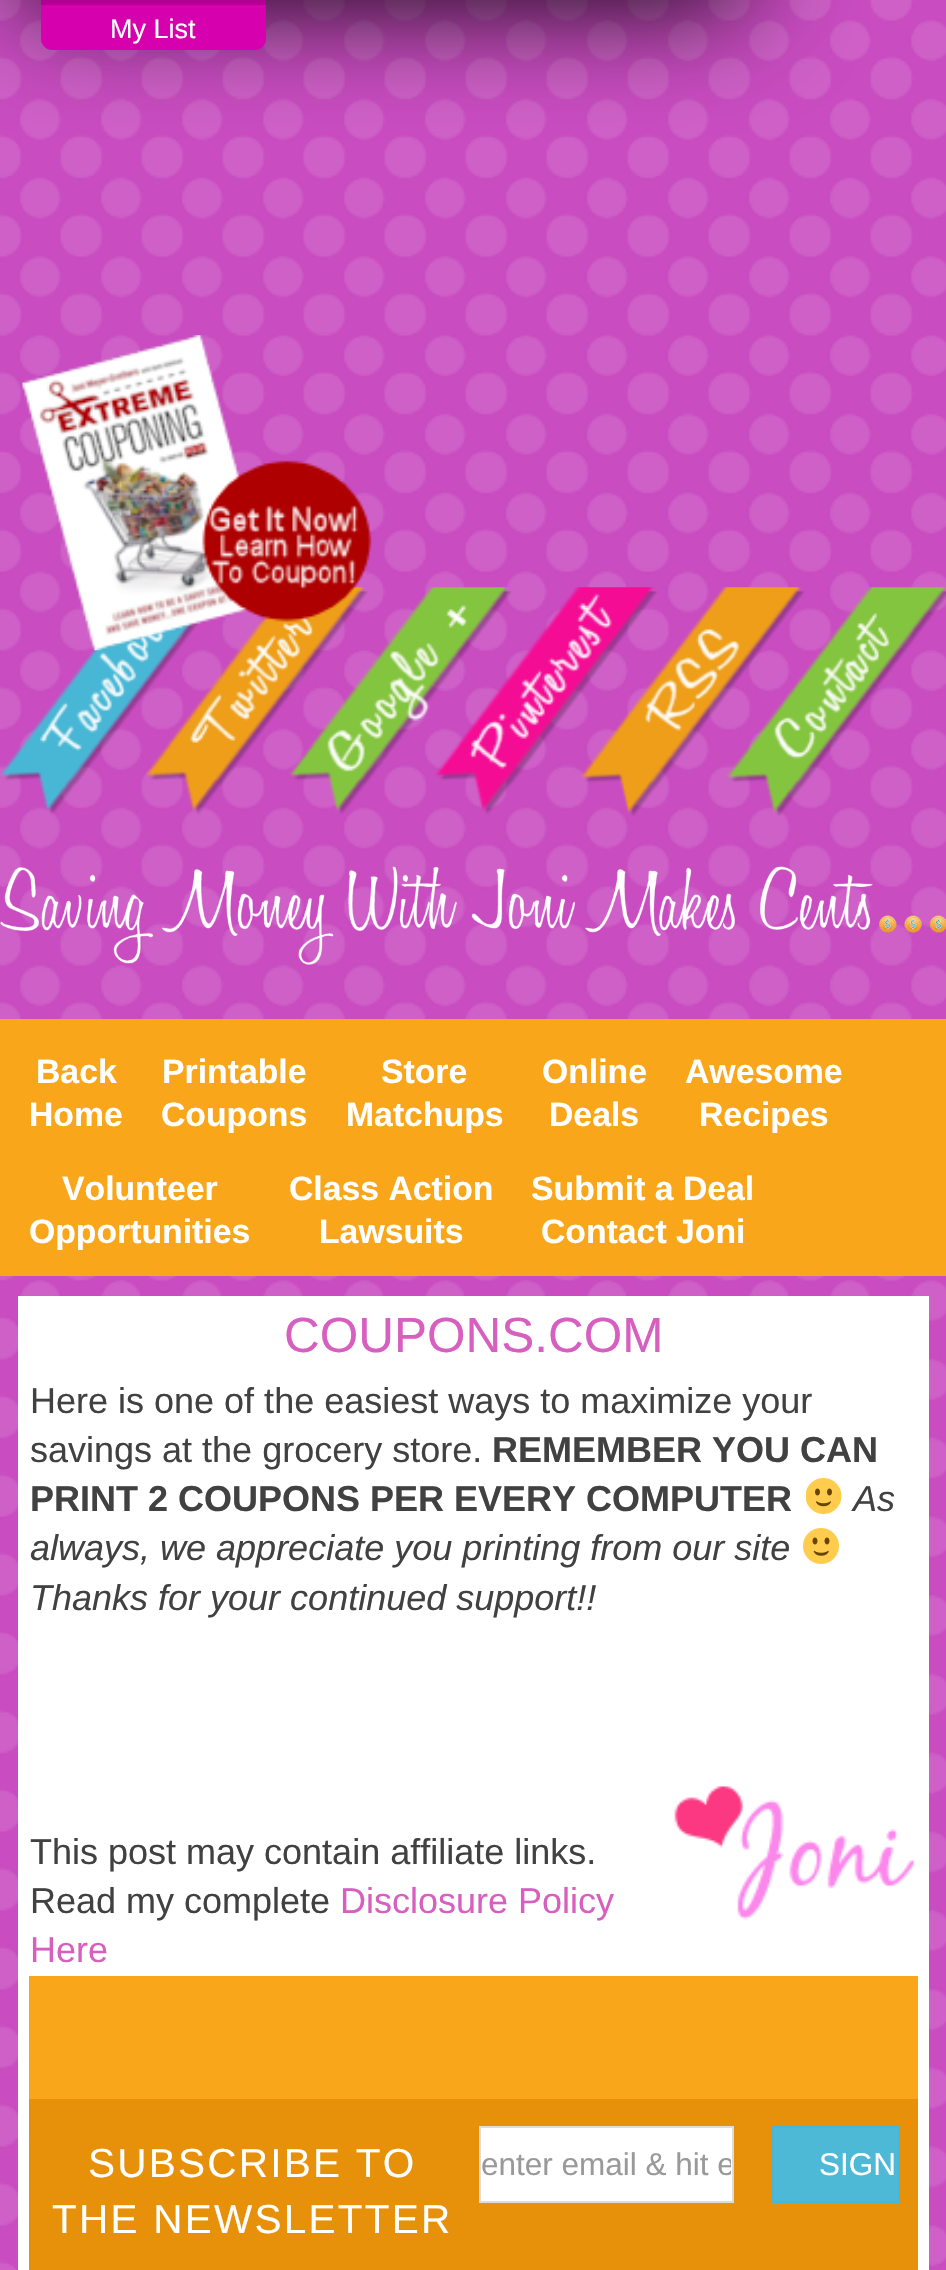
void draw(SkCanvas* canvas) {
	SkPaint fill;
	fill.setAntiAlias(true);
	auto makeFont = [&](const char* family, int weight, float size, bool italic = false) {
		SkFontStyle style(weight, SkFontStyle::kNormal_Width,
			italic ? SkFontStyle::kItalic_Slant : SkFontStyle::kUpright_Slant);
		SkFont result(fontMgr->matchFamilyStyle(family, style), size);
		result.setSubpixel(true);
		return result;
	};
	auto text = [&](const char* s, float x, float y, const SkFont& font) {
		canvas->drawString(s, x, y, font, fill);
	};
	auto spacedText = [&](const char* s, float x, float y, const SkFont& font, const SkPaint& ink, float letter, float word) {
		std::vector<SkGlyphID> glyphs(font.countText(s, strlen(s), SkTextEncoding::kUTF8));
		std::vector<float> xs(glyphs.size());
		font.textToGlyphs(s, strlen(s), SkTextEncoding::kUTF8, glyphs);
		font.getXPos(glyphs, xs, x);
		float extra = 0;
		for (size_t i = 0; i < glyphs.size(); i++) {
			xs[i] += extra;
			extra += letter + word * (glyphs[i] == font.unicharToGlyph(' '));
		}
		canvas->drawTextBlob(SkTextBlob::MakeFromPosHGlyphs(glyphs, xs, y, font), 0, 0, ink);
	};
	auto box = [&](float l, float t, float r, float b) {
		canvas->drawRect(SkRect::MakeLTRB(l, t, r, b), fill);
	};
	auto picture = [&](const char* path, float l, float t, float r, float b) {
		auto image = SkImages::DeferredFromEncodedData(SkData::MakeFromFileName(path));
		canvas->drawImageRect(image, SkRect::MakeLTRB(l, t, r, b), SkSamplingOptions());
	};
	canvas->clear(0xFFFFFFFF);
	picture("image0.png", 0, 0, 946, 2270);
	fill.setColor(0xFF000000);
	fill.setMaskFilter(SkMaskFilter::MakeBlur(kNormal_SkBlurStyle, 57.5f));
	canvas->drawRoundRect(SkRect::MakeLTRB(23, -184, 743, 2), 11, 11, fill);
	fill.setMaskFilter(nullptr);
	fill.setColor(0xFFD600AE);
	canvas->drawPath(SkPathBuilder().moveTo(41, -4).lineTo(266, -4).lineTo(266, 39).cubicTo(266, 45, 261, 50, 255, 50).lineTo(52, 50).cubicTo(46, 50, 41, 45, 41, 39).close().detach(), fill);
	fill.setColor(0xFFB30092);
	box(41, 0, 266, 5);
	picture("image2.png", 0, 587, 946, 816);
	picture("image1.png", 22, 335, 372, 651);
	picture("image3.png", 0, 866, 946, 965);
	fill.setColor(0xFFF9A61A);
	box(0, 1019, 946, 1276);
	fill.setColor(0xFFFFFFFF);
	box(18, 1296, 929, 2270);
	picture("image4.png", 806, 1478, 842, 1514);
	picture("image5.png", 803, 1528, 839, 1564);
	picture("image6.png", 674, 1786, 915, 1920);
	fill.setColor(0xFFF9A61A);
	box(29, 1976, 918, 2099);
	fill.setColor(0xFFE79009);
	box(29, 2099, 918, 2270);
	fill.setColor(0xFFFFFFFF);
	canvas->drawRect(SkRect::MakeLTRB(480, 2127, 733, 2202), fill);
	fill.setStyle(SkPaint::kStroke_Style);
	fill.setStrokeWidth(2);
	fill.setColor(0xFFDDDDDD);
	canvas->drawRect(SkRect::MakeLTRB(480, 2127, 733, 2202), fill);
	fill.setStyle(SkPaint::kFill_Style);
	fill.setColor(0xFF4DB9D6);
	canvas->drawRect(SkRect::MakeLTRB(773, 2127, 899, 2202), fill);
	fill.setStyle(SkPaint::kStroke_Style);
	fill.setColor(0xFF48B7D5);
	canvas->drawRect(SkRect::MakeLTRB(773, 2127, 899, 2202), fill);
	auto font1 = makeFont("Liberation Sans", 400, 27);
	fill.setStyle(SkPaint::kFill_Style);
	fill.setColor(0xFFFFFFFF);
	text("My List", 110, 38, font1);
	auto font2 = makeFont("Liberation Sans", 700, 33.75f);
	text("Back", 36, 1083, font2);
	text("Home", 29, 1126, font2);
	text("Printable", 162, 1083, font2);
	text("Coupons", 161, 1126, font2);
	text("Store", 381, 1083, font2);
	text("Matchups", 346, 1126, font2);
	text("Online", 542, 1083, font2);
	text("Deals", 549, 1126, font2);
	text("Awesome", 685, 1083, font2);
	text("Recipes", 699, 1126, font2);
	text("Volunteer", 62, 1200, font2);
	text("Opportunities", 29, 1243, font2);
	text("Class Action", 289, 1200, font2);
	text("Lawsuits", 319, 1243, font2);
	text("Submit a Deal", 531, 1200, font2);
	text("Contact Joni", 541, 1243, font2);
	auto font3 = makeFont("Liberation Sans", 400, 49.5f);
	fill.setColor(0xFFD75FC0);
	text("COUPONS.COM", 284, 1352, font3);
	auto font4 = makeFont("Liberation Sans", 400, 36);
	fill.setColor(0xFF414141);
	text("Here is one of the easiest ways to maximize your", 30, 1413, font4);
	text("savings at the grocery store.", 30, 1462, font4);
	auto font5 = makeFont("Liberation Sans", 700, 36);
	text("REMEMBER YOU CAN", 492, 1462, font5);
	text("PRINT 2 COUPONS PER EVERY COMPUTER", 30, 1511, font5);
	auto font6 = makeFont("Liberation Sans", 400, 36, true);
	text("As", 853, 1511, font6);
	text("always, we appreciate you printing from our site", 30, 1560, font6);
	text("Thanks for your continued support!!", 30, 1610, font6);
	text("This post may contain affiliate links.", 30, 1864, font4);
	text("Read my complete", 30, 1913, font4);
	fill.setColor(0xFFD75FC0);
	text("Disclosure Policy", 340, 1913, font4);
	text("Here", 30, 1962, font4);
	auto font7 = makeFont("Liberation Sans", 400, 40.5f);
	fill.setColor(0xFFFFFFFF);
	spacedText("SUBSCRIBE TO", 88, 2177, font7, fill, 2.25f, 0);
	spacedText("THE NEWSLETTER", 52, 2233, font7, fill, 2.25f, 0);
	canvas->save();
	canvas->clipRect(SkRect::MakeLTRB(482, 2147, 731, 2183));
	auto font8 = makeFont("Liberation Sans", 400, 31.5f);
	fill.setColor(0xFF999999);
	text("enter email & hit e", 481, 2175, font8);
	canvas->restore();
	fill.setColor(0xFFFFFFFF);
	text("SIGN", 819, 2175, font8);
}
